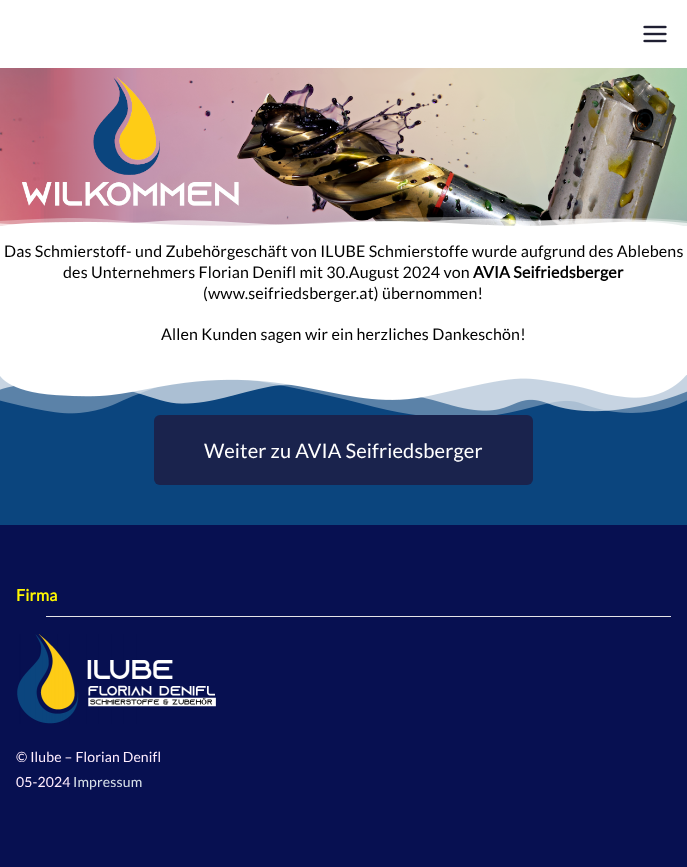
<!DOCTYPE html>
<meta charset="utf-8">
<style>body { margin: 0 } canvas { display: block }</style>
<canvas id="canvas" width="687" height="867"></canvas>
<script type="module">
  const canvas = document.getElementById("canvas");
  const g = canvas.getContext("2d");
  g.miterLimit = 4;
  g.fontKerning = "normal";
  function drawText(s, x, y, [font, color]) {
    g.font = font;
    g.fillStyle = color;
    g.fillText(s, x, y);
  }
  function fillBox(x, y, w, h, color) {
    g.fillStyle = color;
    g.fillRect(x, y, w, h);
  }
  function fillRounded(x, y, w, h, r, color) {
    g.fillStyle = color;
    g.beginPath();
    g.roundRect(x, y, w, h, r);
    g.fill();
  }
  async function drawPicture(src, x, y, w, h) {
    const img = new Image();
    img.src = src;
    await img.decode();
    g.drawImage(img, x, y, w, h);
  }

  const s1 = ["16px Lato", "#000000"];
  const s2 = ["bold 16px Lato", "#000000"];
  const s3 = ["20px Lato", "#FFFFFF"];
  const s4 = ["bold 16px Lato", "#FFF700"];
  const s5 = ["14px Lato", "#FFEDFE"];
  const s6 = ["14px Lato", "#D9E2EA"];

  fillBox(0, 0, 687, 867, "#FFFFFF");
  await drawPicture("pic1.png", 643, 25, 24, 18);
  await drawPicture("pic2.png", 0, 68, 687, 158);
  await drawPicture("pic3.png", 0, 217, 687, 9);
  g.letterSpacing = "0.15px";
  drawText("Das Schmierstoff- und Zubehörgeschäft von ILUBE Schmierstoffe wurde aufgrund des Ablebens", 4, 257, s1);
  drawText("des Unternehmers Florian Denifl mit 30.August 2024 von", 63, 278, s1);
  drawText("AVIA Seifriedsberger", 473, 278, s2);
  drawText("(www.seifriedsberger.at) übernommen!", 203, 299, s1);
  drawText("Allen Kunden sagen wir ein herzliches Dankeschön!", 161, 340, s1);
  fillBox(0, 375, 687, 150, "#0B457E");
  await drawPicture("pic4.png", 0, 375, 687, 40);
  fillRounded(154, 415, 379, 70, 6, "#1A234D");
  drawText("Weiter zu AVIA Seifriedsberger", 204, 458, s3);
  fillBox(0, 525, 687, 342, "#071051");
  fillBox(46, 616, 625, 1, "#E4E4E7");
  drawText("Firma", 16, 601, s4);
  await drawPicture("pic5.png", 17, 634, 199, 90);
  drawText("© Ilube – Florian Denifl", 16, 762, s5);
  drawText("05-2024", 16, 787, s5);
  drawText("Impressum", 73, 787, s6);
</script>
